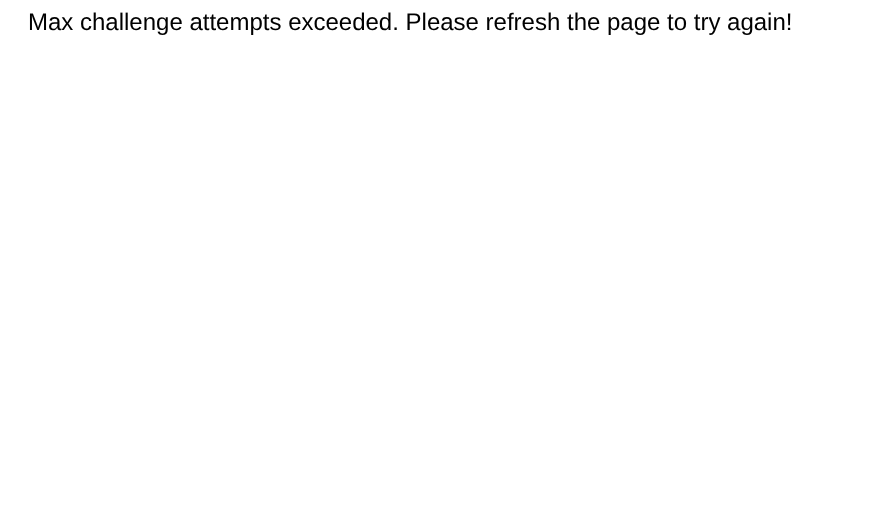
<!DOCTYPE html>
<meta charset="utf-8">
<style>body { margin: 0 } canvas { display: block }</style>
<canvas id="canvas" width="884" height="515"></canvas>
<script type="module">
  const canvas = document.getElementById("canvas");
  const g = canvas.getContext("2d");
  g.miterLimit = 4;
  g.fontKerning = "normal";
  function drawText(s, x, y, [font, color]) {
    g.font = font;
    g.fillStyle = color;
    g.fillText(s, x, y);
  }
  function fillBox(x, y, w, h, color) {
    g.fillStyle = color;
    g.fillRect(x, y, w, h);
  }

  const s1 = ["24px Liberation Sans", "#000000"];

  fillBox(0, 0, 884, 515, "#FFFFFF");
  drawText("Max challenge attempts exceeded. Please refresh the page to try again!", 28, 30, s1);
</script>
